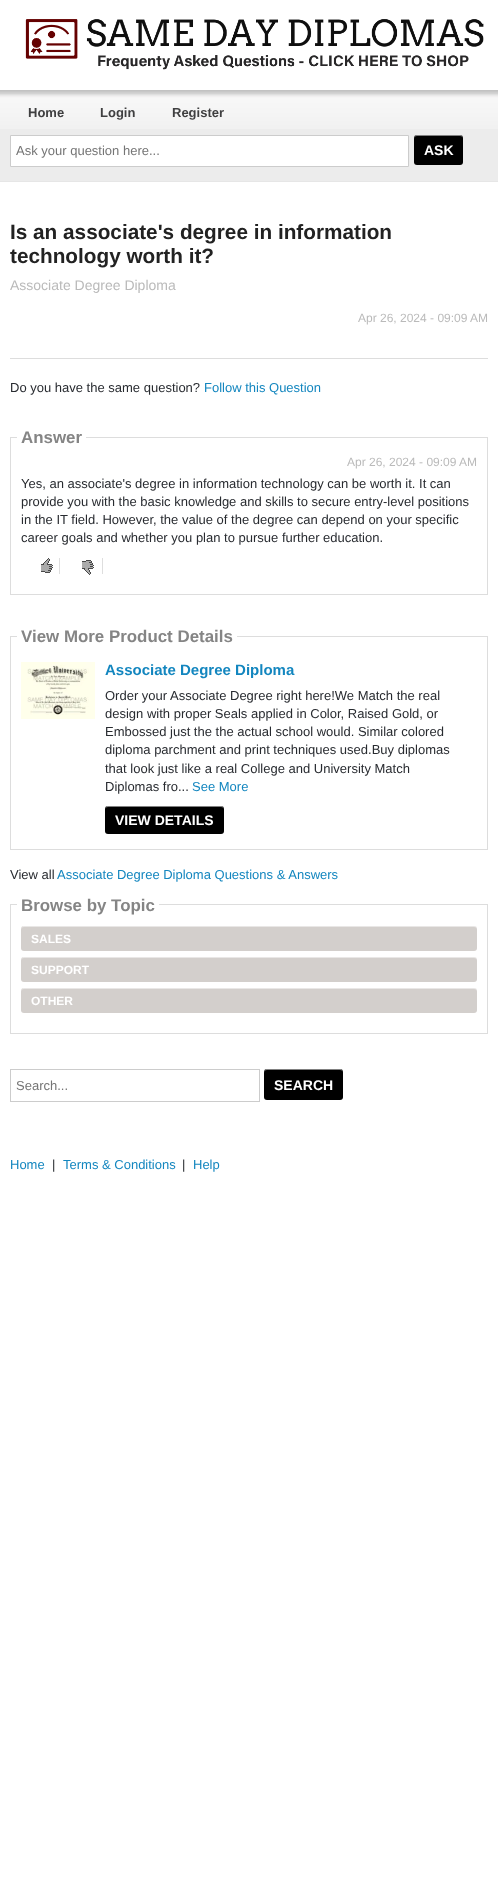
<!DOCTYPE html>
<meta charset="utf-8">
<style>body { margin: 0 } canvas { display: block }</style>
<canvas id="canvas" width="498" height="1904"></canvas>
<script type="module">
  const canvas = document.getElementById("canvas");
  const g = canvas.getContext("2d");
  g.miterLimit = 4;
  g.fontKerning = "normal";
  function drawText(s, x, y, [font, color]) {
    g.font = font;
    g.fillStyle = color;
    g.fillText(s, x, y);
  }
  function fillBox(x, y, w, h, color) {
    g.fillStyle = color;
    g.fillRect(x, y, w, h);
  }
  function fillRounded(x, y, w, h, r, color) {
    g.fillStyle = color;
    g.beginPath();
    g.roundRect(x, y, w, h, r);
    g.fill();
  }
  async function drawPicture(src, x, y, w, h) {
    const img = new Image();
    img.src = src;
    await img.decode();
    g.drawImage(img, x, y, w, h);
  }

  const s1 = ["bold 13px Liberation Sans", "#3F3F40"];
  const s2 = ["13px Liberation Sans", "#757575"];
  const s3 = ["bold 14px Liberation Sans", "#FFFFFF"];
  const s4 = ["bold 20.75px Liberation Sans", "#222222"];
  const s5 = ["14px Liberation Sans", "#BABABA"];
  const s6 = ["12px Liberation Sans", "#BABABA"];
  const s7 = ["13px Liberation Sans", "#282B30"];
  const s8 = ["13px Liberation Sans", "#1386BF"];
  const s9 = ["bold 16.9px Liberation Sans", "#858585"];
  const s10 = ["bold 15px Liberation Sans", "#1386BF"];
  const s11 = ["bold 12px Liberation Sans", "#FFFFFF"];

  fillBox(0, 0, 498, 1904, "#FFFFFF");
  await drawPicture("pic1.png", 25, 19, 459, 51);
  fillBox(0, 129, 498, 52, "#ECECEC");
  await drawPicture("pic2.png", 0, 90, 498, 39);
  fillBox(0, 181, 498, 1, "#E6E6E6");
  drawText("Home", 28, 117, s1);
  drawText("Login", 100, 117, s1);
  drawText("Register", 172, 117, s1);
  g.fillStyle = "#FFFFFF";
  g.beginPath();
  g.rect(10.5, 135.5, 398, 31);
  g.fill();
  g.strokeStyle = "#CCCCCC";
  g.stroke();
  drawText("Ask your question here...", 16, 155, s2);
  fillRounded(414, 135, 49, 30, 3, "#000000");
  g.fillStyle = "rgba(255, 255, 255, 0.5)";
  g.beginPath();
  g.moveTo(417, 136);
  g.lineTo(460, 136);
  g.bezierCurveTo(462, 136, 463, 137, 463, 139);
  g.bezierCurveTo(463, 133, 457, 135, 453, 135);
  g.lineTo(424, 135);
  g.bezierCurveTo(420, 135, 414, 133, 414, 139);
  g.bezierCurveTo(414, 137, 415, 136, 417, 136);
  g.closePath();
  g.fill();
  drawText("ASK", 424, 155, s3);
  drawText("Is an associate's degree in information", 10, 239, s4);
  drawText("technology worth it?", 10, 263, s4);
  drawText("Associate Degree Diploma", 10, 290, s5);
  drawText("Apr 26, 2024 - 09:09 AM", 358, 322, s6);
  fillBox(10, 358, 478, 1, "#DDDDDD");
  drawText("Do you have the same question?", 10, 392, s7);
  drawText("Follow this Question", 204, 392, s8);
  g.strokeStyle = "#DDDDDD";
  g.strokeRect(10.5, 437.5, 477, 157);
  fillBox(17, 437, 69, 1, "#FFFFFF");
  drawText("Answer", 21, 443, s9);
  drawText("Apr 26, 2024 - 09:09 AM", 347, 466, s6);
  drawText("Yes, an associate's degree in information technology can be worth it. It can", 21, 488, s7);
  drawText("provide you with the basic knowledge and skills to secure entry-level positions", 21, 506, s7);
  drawText("in the IT field. However, the value of the degree can depend on your specific", 21, 524, s7);
  drawText("career goals and whether you plan to pursue further education.", 21, 542, s7);
  fillBox(59, 558, 1, 16, "#DEDEDE");
  await drawPicture("pic3.png", 41, 558, 12, 15);
  fillBox(102, 558, 1, 16, "#DEDEDE");
  await drawPicture("pic4.png", 82, 560, 12, 15);
  g.strokeRect(10.5, 636.5, 477, 213);
  fillBox(17, 636, 220, 1, "#FFFFFF");
  drawText("View More Product Details", 21, 642, s9);
  await drawPicture("pic5.png", 21, 662, 74, 57);
  drawText("Associate Degree Diploma", 105, 675, s10);
  drawText("Order your Associate Degree right here!We Match the real", 105, 700, s7);
  drawText("design with proper Seals applied in Color, Raised Gold, or", 105, 718, s7);
  drawText("Embossed just the the actual school would. Similar colored", 105, 736, s7);
  drawText("diploma parchment and print techniques used.Buy diplomas", 105, 754, s7);
  drawText("that look just like a real College and University Match", 105, 773, s7);
  drawText("Diplomas fro...", 105, 791, s7);
  drawText("See More", 192, 791, s8);
  fillRounded(105, 806, 119, 28, 3, "#000000");
  g.fillStyle = "rgba(255, 255, 255, 0.5)";
  g.beginPath();
  g.moveTo(108, 807);
  g.lineTo(221, 807);
  g.bezierCurveTo(223, 807, 224, 808, 224, 810);
  g.bezierCurveTo(224, 808, 223, 806, 221, 806);
  g.lineTo(127, 806);
  g.bezierCurveTo(126, 806, 105, 801, 105, 810);
  g.bezierCurveTo(105, 808, 106, 807, 108, 807);
  g.closePath();
  g.fill();
  drawText("VIEW DETAILS", 115, 825, s3);
  drawText("View all", 10, 879, s7);
  drawText("Associate Degree Diploma Questions & Answers", 57, 879, s8);
  g.strokeRect(10.5, 904.5, 477, 129);
  fillBox(17, 904, 142, 1, "#FFFFFF");
  drawText("Browse by Topic", 21, 911, s9);
  fillRounded(21, 926, 456, 25, 3, "#D3CFCC");
  g.fillStyle = "rgba(255, 255, 255, 0.5)";
  g.beginPath();
  g.moveTo(24, 927);
  g.lineTo(474, 927);
  g.bezierCurveTo(476, 927, 477, 928, 477, 930);
  g.bezierCurveTo(477, 928, 477, 926, 475, 926);
  g.lineTo(23, 926);
  g.lineTo(21, 928);
  g.lineTo(21, 930);
  g.bezierCurveTo(21, 928, 22, 927, 24, 927);
  g.closePath();
  g.fill();
  drawText("SALES", 31, 943, s11);
  fillRounded(21, 957, 456, 25, 3, "#D3CFCC");
  g.fillStyle = "rgba(255, 255, 255, 0.5)";
  g.beginPath();
  g.moveTo(24, 958);
  g.lineTo(474, 958);
  g.bezierCurveTo(476, 958, 477, 959, 477, 961);
  g.bezierCurveTo(477, 959, 477, 957, 475, 957);
  g.lineTo(23, 957);
  g.lineTo(21, 959);
  g.lineTo(21, 961);
  g.bezierCurveTo(21, 959, 22, 958, 24, 958);
  g.closePath();
  g.fill();
  drawText("SUPPORT", 31, 974, s11);
  fillRounded(21, 988, 456, 25, 3, "#D3CFCC");
  g.fillStyle = "rgba(255, 255, 255, 0.5)";
  g.beginPath();
  g.moveTo(24, 989);
  g.lineTo(474, 989);
  g.bezierCurveTo(476, 989, 477, 990, 477, 992);
  g.bezierCurveTo(477, 990, 477, 988, 475, 988);
  g.lineTo(23, 988);
  g.lineTo(21, 990);
  g.lineTo(21, 992);
  g.bezierCurveTo(21, 990, 22, 989, 24, 989);
  g.closePath();
  g.fill();
  drawText("OTHER", 31, 1005, s11);
  g.strokeStyle = "#CCCCCC";
  g.strokeRect(10.5, 1069.5, 249, 32);
  drawText("Search...", 16, 1090, s2);
  fillRounded(264, 1069, 79, 31, 3, "#000000");
  g.fillStyle = "rgba(255, 255, 255, 0.5)";
  g.beginPath();
  g.moveTo(267, 1070);
  g.lineTo(340, 1070);
  g.bezierCurveTo(342, 1070, 343, 1071, 343, 1073);
  g.bezierCurveTo(343, 1066, 332, 1069, 328, 1069);
  g.lineTo(279, 1069);
  g.bezierCurveTo(275, 1069, 264, 1066, 264, 1073);
  g.bezierCurveTo(264, 1071, 265, 1070, 267, 1070);
  g.closePath();
  g.fill();
  drawText("SEARCH", 274, 1090, s3);
  drawText("Home", 10, 1169, s8);
  drawText("|", 52, 1169, s7);
  drawText("Terms & Conditions", 63, 1169, s8);
  drawText("|", 182, 1169, s7);
  drawText("Help", 193, 1169, s8);
</script>
